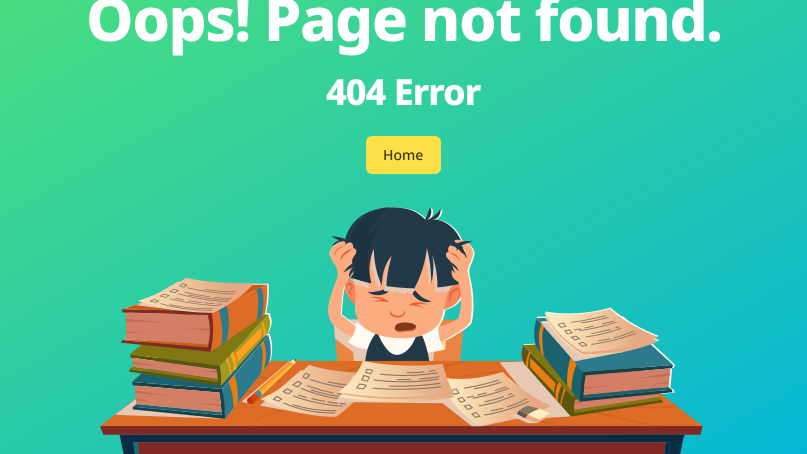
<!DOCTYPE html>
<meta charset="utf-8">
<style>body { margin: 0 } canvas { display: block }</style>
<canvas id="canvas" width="807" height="454"></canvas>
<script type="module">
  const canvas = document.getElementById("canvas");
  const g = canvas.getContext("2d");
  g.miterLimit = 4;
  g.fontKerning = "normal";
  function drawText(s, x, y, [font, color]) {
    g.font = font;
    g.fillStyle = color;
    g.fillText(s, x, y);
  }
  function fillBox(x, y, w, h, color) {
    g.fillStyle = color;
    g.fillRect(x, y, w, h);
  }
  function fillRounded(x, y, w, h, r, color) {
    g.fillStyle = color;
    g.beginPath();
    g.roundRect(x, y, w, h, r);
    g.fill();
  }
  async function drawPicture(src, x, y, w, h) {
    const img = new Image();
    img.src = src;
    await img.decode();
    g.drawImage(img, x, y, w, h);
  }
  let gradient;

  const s1 = ["800 60px Noto Sans", "#FFFFFF"];
  const s2 = ["800 36px Noto Sans", "#FFFFFF"];
  const s3 = ["500 14px Noto Sans", "#3F3812"];

  fillBox(0, 0, 807, 454, "#FFFFFF");
  gradient = g.createLinearGradient(209, -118, 598, 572);
  gradient.addColorStop(0, "#4ADE80");
  gradient.addColorStop(1, "#06B6D4");
  g.fillStyle = gradient;
  g.fillRect(0, 0, 807, 454);
  g.letterSpacing = "-1.5px";
  drawText("Oops! Page not found.", 86, 41, s1);
  g.letterSpacing = "-1px";
  drawText("404 Error", 326, 105, s2);
  fillRounded(366, 136, 75, 38, 6, "#FDE047");
  g.letterSpacing = "0px";
  drawText("Home", 383, 160, s3);
  await drawPicture("pic1.png", 100, 207, 603, 247);
</script>
